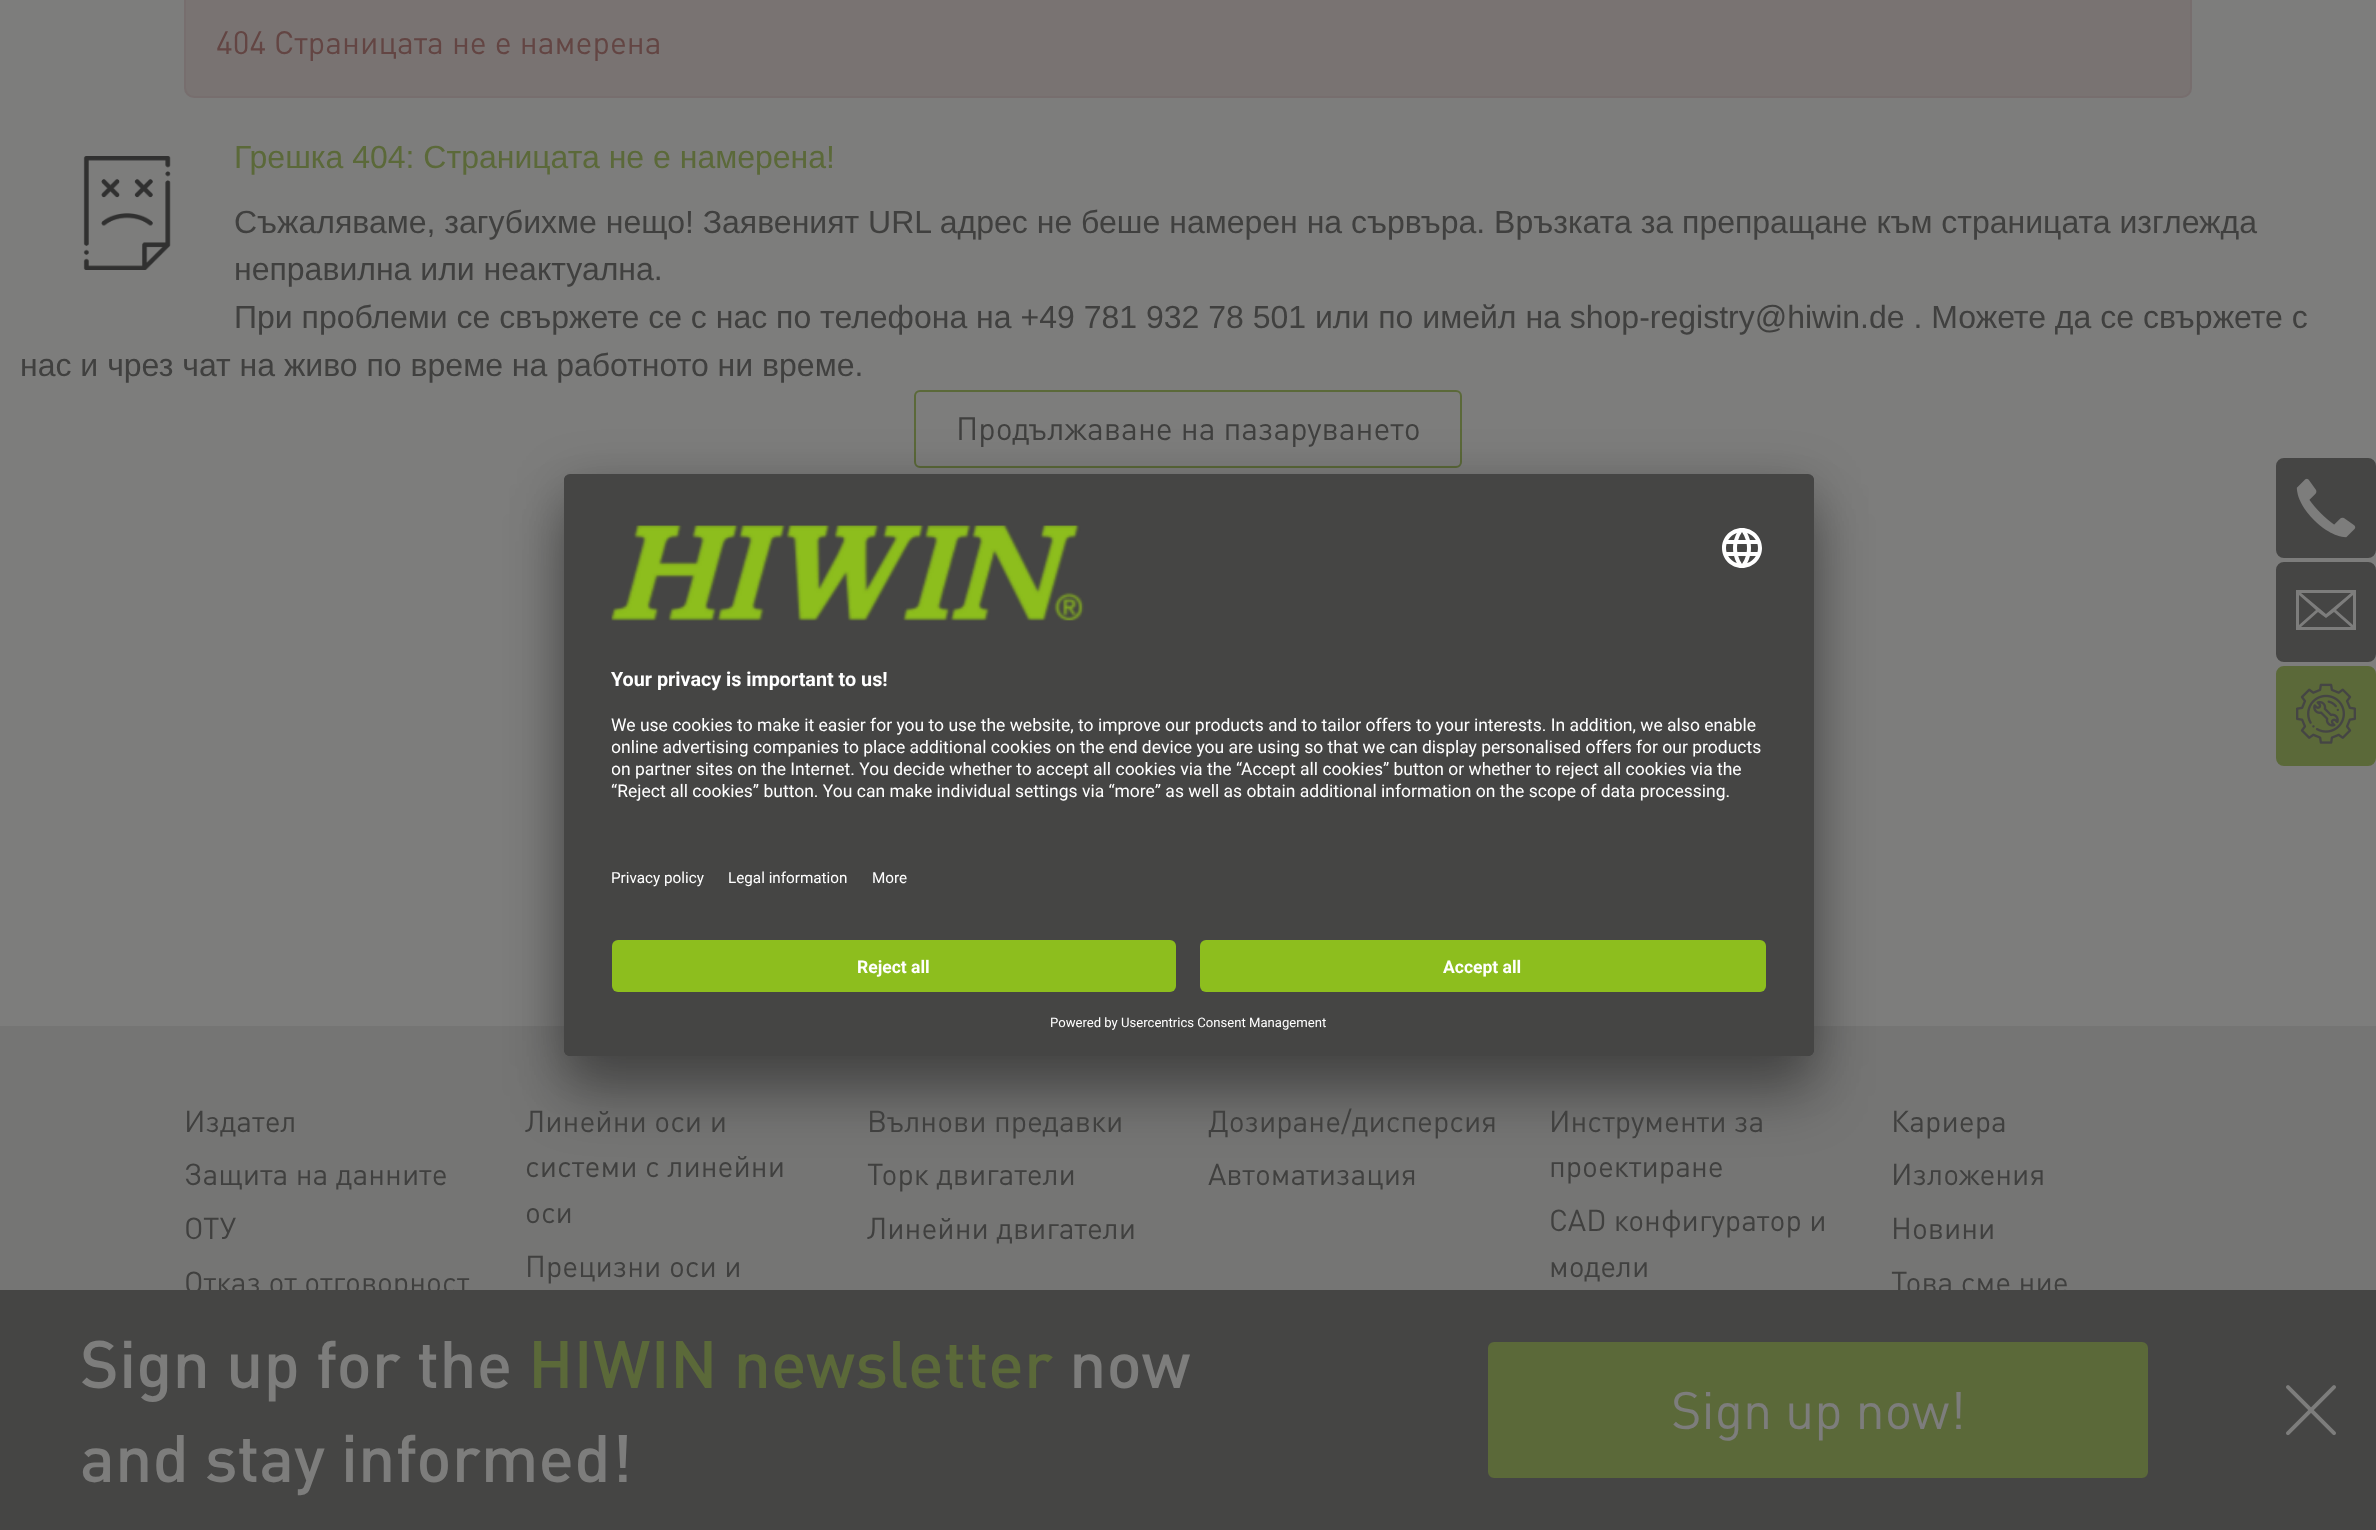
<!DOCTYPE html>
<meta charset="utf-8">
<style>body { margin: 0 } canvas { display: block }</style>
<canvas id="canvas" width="2376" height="1530"></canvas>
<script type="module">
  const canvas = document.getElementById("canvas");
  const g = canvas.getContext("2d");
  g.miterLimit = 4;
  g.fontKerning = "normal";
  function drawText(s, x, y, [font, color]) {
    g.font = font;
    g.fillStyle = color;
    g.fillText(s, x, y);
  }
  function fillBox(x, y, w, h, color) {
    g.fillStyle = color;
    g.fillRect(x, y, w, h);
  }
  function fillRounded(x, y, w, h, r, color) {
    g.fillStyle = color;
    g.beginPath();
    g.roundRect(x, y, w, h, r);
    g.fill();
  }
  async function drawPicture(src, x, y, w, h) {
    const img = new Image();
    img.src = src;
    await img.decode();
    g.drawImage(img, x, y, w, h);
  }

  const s1 = ["32px DIN", "#634543"];
  const s2 = ["32px Liberation Sans", "#5B6939"];
  const s3 = ["32px Liberation Sans", "#40403F"];
  const s4 = ["32px DIN", "#40403F"];
  const s5 = ["bold 19.75px Roboto", "#FFFFFF"];
  const s6 = ["17.5px Roboto", "#FFFFFF"];
  const s7 = ["15.25px Roboto", "#FFFFFF"];
  const s8 = ["bold 17.5px Roboto", "#FFFFFF"];
  const s9 = ["13.1px Roboto", "#FFFFFF"];
  const s10 = ["30px DIN", "#40403F"];
  const s11 = ["500 66px DIN", "#7D7D7C"];
  const s12 = ["500 66px DIN", "#5B6939"];
  const s13 = ["52px DIN", "#7D7D7C"];

  fillBox(0, 0, 2376, 1530, "#7D7D7C");
  g.fillStyle = "#797372";
  g.beginPath();
  g.roundRect(185, -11, 2006, 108, 9);
  g.fill();
  g.strokeStyle = "#776E6E";
  g.lineWidth = 2;
  g.stroke();
  drawText("404 Страницата не е намерена", 216, 54, s1);
  await drawPicture("pic1.png", 83, 156, 88, 114);
  drawText("Грешка 404: Страницата не е намерена!", 234, 168, s2);
  drawText("Съжаляваме, загубихме нещо! Заявеният URL адрес не беше намерен на сървъра. Връзката за препращане към страницата изглежда", 234, 233, s3);
  drawText("неправилна или неактуална.", 234, 280, s3);
  drawText("При проблеми се свържете се с нас по телефона на +49 781 932 78 501 или по имейл на shop-registry@hiwin.de . Можете да се свържете с", 234, 328, s3);
  drawText("нас и чрез чат на живо по време на работното ни време.", 20, 376, s3);
  g.beginPath();
  g.roundRect(915, 391, 546, 76, 5);
  g.strokeStyle = "#5B6939";
  g.stroke();
  drawText("Продължаване на пазаруването", 956, 440, s4);
  fillBox(0, 1026, 2376, 264, "#757574");
  g.fillStyle = "rgba(0, 0, 0, 0.3)";
  g.filter = "blur(28px)";
  g.beginPath();
  g.roundRect(564, 514, 1250, 582, 6);
  g.fill();
  g.filter = "none";
  g.fillStyle = "rgba(0, 0, 0, 0.22)";
  g.filter = "blur(26px)";
  g.beginPath();
  g.roundRect(564, 484, 1250, 582, 6);
  g.fill();
  g.filter = "none";
  fillRounded(564, 474, 1250, 582, 6, "#454544");
  g.save();
  g.beginPath();
  g.roundRect(564, 474, 1250, 582, 6);
  g.clip();
  g.beginPath();
  g.roundRect(564, 474, 1250, 450, [6, 6, 0, 0]);
  g.clip();
  fillBox(564, 476, 1250, 448, "#454544");
  g.restore();
  await drawPicture("pic2.png", 611, 525, 473, 96);
  await drawPicture("pic3.png", 1722, 528, 40, 40);
  drawText("Your privacy is important to us!", 611, 686, s5);
  drawText("We use cookies to make it easier for you to use the website, to improve our products and to tailor offers to your interests. In addition, we also enable", 611, 731, s6);
  g.save();
  g.beginPath();
  g.rect(612, 706, 1154, 104);
  g.clip();
  drawText("online advertising companies to place additional cookies on the end device you are using so that we can display personalised offers for our products", 611, 753, s6);
  drawText("on partner sites on the Internet. You decide whether to accept all cookies via the “Accept all cookies” button or whether to reject all cookies via the", 611, 775, s6);
  g.restore();
  drawText("“Reject all cookies” button. You can make individual settings via “more” as well as obtain additional information on the scope of data processing.", 611, 797, s6);
  drawText("Privacy policy", 611, 883, s7);
  drawText("Legal information", 728, 883, s7);
  drawText("More", 872, 883, s7);
  g.fillStyle = "#454544";
  g.beginPath();
  g.roundRect(564, 924, 1250, 132, [0, 0, 6, 6]);
  g.fill();
  fillRounded(612, 940, 564, 52, 6, "#8DBE1E");
  drawText("Reject all", 857, 973, s8);
  fillRounded(1200, 940, 566, 52, 6, "#8DBE1E");
  drawText("Accept all", 1443, 973, s8);
  drawText("Powered by Usercentrics Consent Management", 1050, 1027, s9);
  g.fillStyle = "#454544";
  g.beginPath();
  g.roundRect(2277, 459, 98, 98, 7);
  g.fill();
  g.strokeStyle = "#454544";
  g.stroke();
  await drawPicture("pic4.png", 2296, 478, 60, 60);
  g.beginPath();
  g.roundRect(2277, 563, 98, 98, 7);
  g.fill();
  g.stroke();
  g.fillStyle = "#7D7D7C";
  g.beginPath();
  g.moveTo(2296, 590);
  g.lineTo(2296, 630);
  g.lineTo(2356, 630);
  g.lineTo(2356, 590);
  g.closePath();
  g.moveTo(2326, 614);
  g.lineTo(2301, 593);
  g.lineTo(2351, 593);
  g.closePath();
  g.moveTo(2316, 610);
  g.lineTo(2299, 625);
  g.lineTo(2299, 595);
  g.closePath();
  g.moveTo(2318, 612);
  g.lineTo(2326, 618);
  g.lineTo(2334, 612);
  g.lineTo(2351, 627);
  g.lineTo(2301, 627);
  g.closePath();
  g.moveTo(2336, 610);
  g.lineTo(2353, 595);
  g.lineTo(2353, 625);
  g.closePath();
  g.fill();
  g.fillStyle = "#5B6939";
  g.beginPath();
  g.roundRect(2277, 667, 98, 98, 7);
  g.fill();
  g.strokeStyle = "#5B6939";
  g.stroke();
  await drawPicture("pic5.png", 2296, 683, 60, 61);
  drawText("Издател", 184, 1132, s10);
  drawText("Защита на данните", 184, 1185, s10);
  drawText("ОТУ", 184, 1239, s10);
  drawText("Отказ от отговорност", 184, 1293, s10);
  drawText("Линейни оси и", 525, 1132, s10);
  drawText("системи с линейни", 525, 1177, s10);
  drawText("оси", 525, 1223, s10);
  drawText("Прецизни оси и", 525, 1277, s10);
  drawText("Вълнови предавки", 867, 1132, s10);
  drawText("Торк двигатели", 867, 1185, s10);
  drawText("Линейни двигатели", 867, 1239, s10);
  drawText("Дозиране/дисперсия", 1208, 1132, s10);
  drawText("Автоматизация", 1208, 1185, s10);
  drawText("Инструменти за", 1549, 1132, s10);
  drawText("проектиране", 1549, 1177, s10);
  drawText("CAD конфигуратор и", 1549, 1231, s10);
  drawText("модели", 1549, 1277, s10);
  drawText("Кариера", 1891, 1132, s10);
  drawText("Изложения", 1891, 1185, s10);
  drawText("Новини", 1891, 1239, s10);
  drawText("Това сме ние", 1891, 1293, s10);
  fillBox(0, 1290, 2376, 240, "#454544");
  drawText("Sign up for the", 80, 1388, s11);
  drawText("HIWIN newsletter", 528, 1388, s12);
  drawText("now", 1069, 1388, s11);
  drawText("and stay informed!", 80, 1482, s11);
  g.fillStyle = "#5B6939";
  g.beginPath();
  g.roundRect(1489, 1343, 658, 134, 5);
  g.fill();
  g.stroke();
  drawText("Sign up now!", 1671, 1429, s13);
  await drawPicture("pic6.png", 2286, 1385, 50, 51);
</script>
